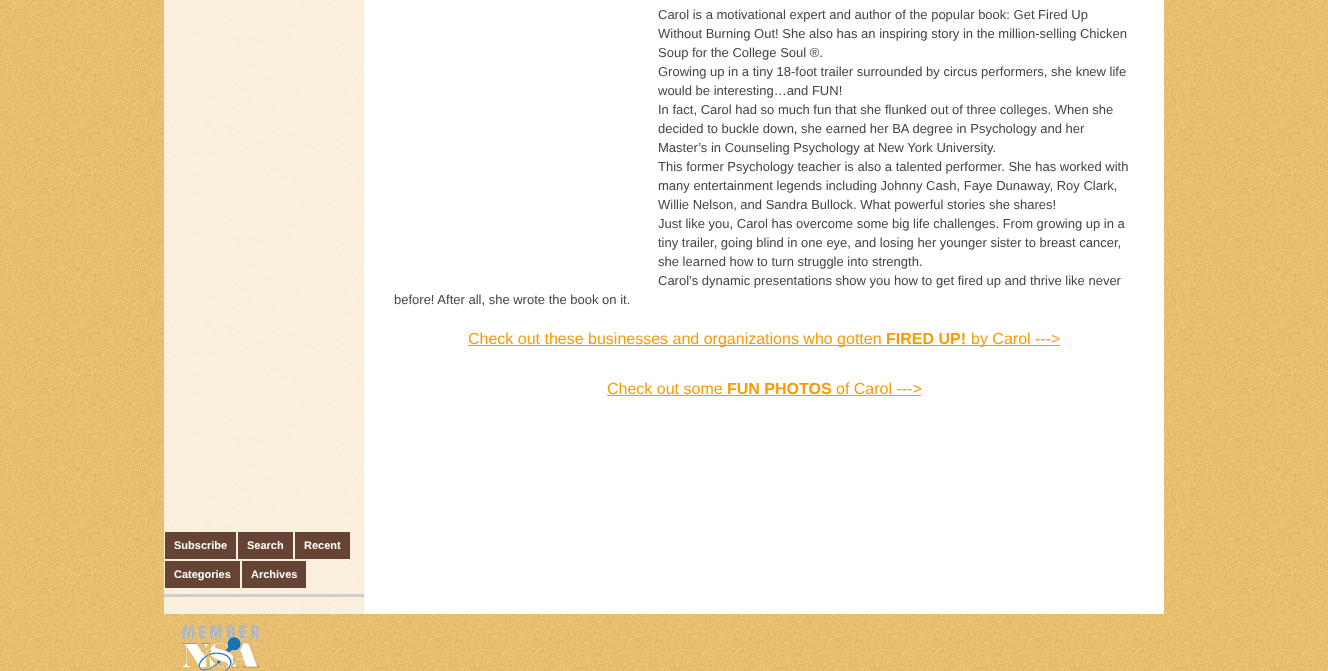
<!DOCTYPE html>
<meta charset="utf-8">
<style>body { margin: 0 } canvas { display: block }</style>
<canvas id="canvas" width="1328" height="671"></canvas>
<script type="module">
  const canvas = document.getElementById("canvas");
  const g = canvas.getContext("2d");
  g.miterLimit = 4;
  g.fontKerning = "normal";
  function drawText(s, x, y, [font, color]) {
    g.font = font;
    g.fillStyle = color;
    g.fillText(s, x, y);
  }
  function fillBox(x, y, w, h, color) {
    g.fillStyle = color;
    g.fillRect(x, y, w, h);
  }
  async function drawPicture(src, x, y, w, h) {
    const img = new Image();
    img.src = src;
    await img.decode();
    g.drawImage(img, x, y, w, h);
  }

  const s1 = ["13px Liberation Sans", "#444444"];
  const s2 = ["16px Liberation Sans", "#FF9900"];
  const s3 = ["bold 16px Liberation Sans", "#FF9900"];
  const s4 = ["bold 11px Liberation Sans", "#FFFFFF"];

  fillBox(0, 0, 1328, 671, "#EEBB55");
  await drawPicture("pic1.png", 0, 0, 1328, 671);
  await drawPicture("pic2.png", 164, 0, 1000, 614);
  drawText("Carol is a motivational expert and author of the popular book: Get Fired Up", 658, 19, s1);
  drawText("Without Burning Out! She also has an inspiring story in the million-selling Chicken", 658, 38, s1);
  drawText("Soup for the College Soul ®.", 658, 57, s1);
  drawText("Growing up in a tiny 18-foot trailer surrounded by circus performers, she knew life", 658, 76, s1);
  drawText("would be interesting…and FUN!", 658, 95, s1);
  drawText("In fact, Carol had so much fun that she flunked out of three colleges. When she", 658, 114, s1);
  drawText("decided to buckle down, she earned her BA degree in Psychology and her", 658, 133, s1);
  drawText("Master’s in Counseling Psychology at New York University.", 658, 152, s1);
  drawText("This former Psychology teacher is also a talented performer. She has worked with", 658, 171, s1);
  drawText("many entertainment legends including Johnny Cash, Faye Dunaway, Roy Clark,", 658, 190, s1);
  drawText("Willie Nelson, and Sandra Bullock. What powerful stories she shares!", 658, 209, s1);
  drawText("Just like you, Carol has overcome some big life challenges. From growing up in a", 658, 228, s1);
  drawText("tiny trailer, going blind in one eye, and losing her younger sister to breast cancer,", 658, 247, s1);
  drawText("she learned how to turn struggle into strength.", 658, 266, s1);
  drawText("Carol’s dynamic presentations show you how to get fired up and thrive like never", 658, 285, s1);
  drawText("before! After all, she wrote the book on it.", 394, 304, s1);
  fillBox(468, 345, 592, 1, "#FF9900");
  drawText("Check out these businesses and organizations who gotten", 468, 344, s2);
  drawText("FIRED UP!", 886, 344, s3);
  drawText("by Carol --->", 971, 344, s2);
  drawText("Check out some", 607, 394, s2);
  fillBox(607, 395, 314, 1, "#FF9900");
  drawText("FUN PHOTOS", 727, 394, s3);
  drawText("of Carol --->", 836, 394, s2);
  fillBox(165, 532, 71, 27, "#664433");
  drawText("Subscribe", 174, 549, s4);
  fillBox(238, 532, 55, 27, "#664433");
  drawText("Search", 247, 549, s4);
  fillBox(295, 532, 55, 27, "#664433");
  drawText("Recent", 304, 549, s4);
  fillBox(165, 561, 75, 27, "#664433");
  drawText("Categories", 174, 578, s4);
  fillBox(242, 561, 64, 27, "#664433");
  drawText("Archives", 251, 578, s4);
  fillBox(164, 594, 200, 3, "#CCCCCC");
  await drawPicture("pic3.png", 181, 625, 79, 46);
</script>
